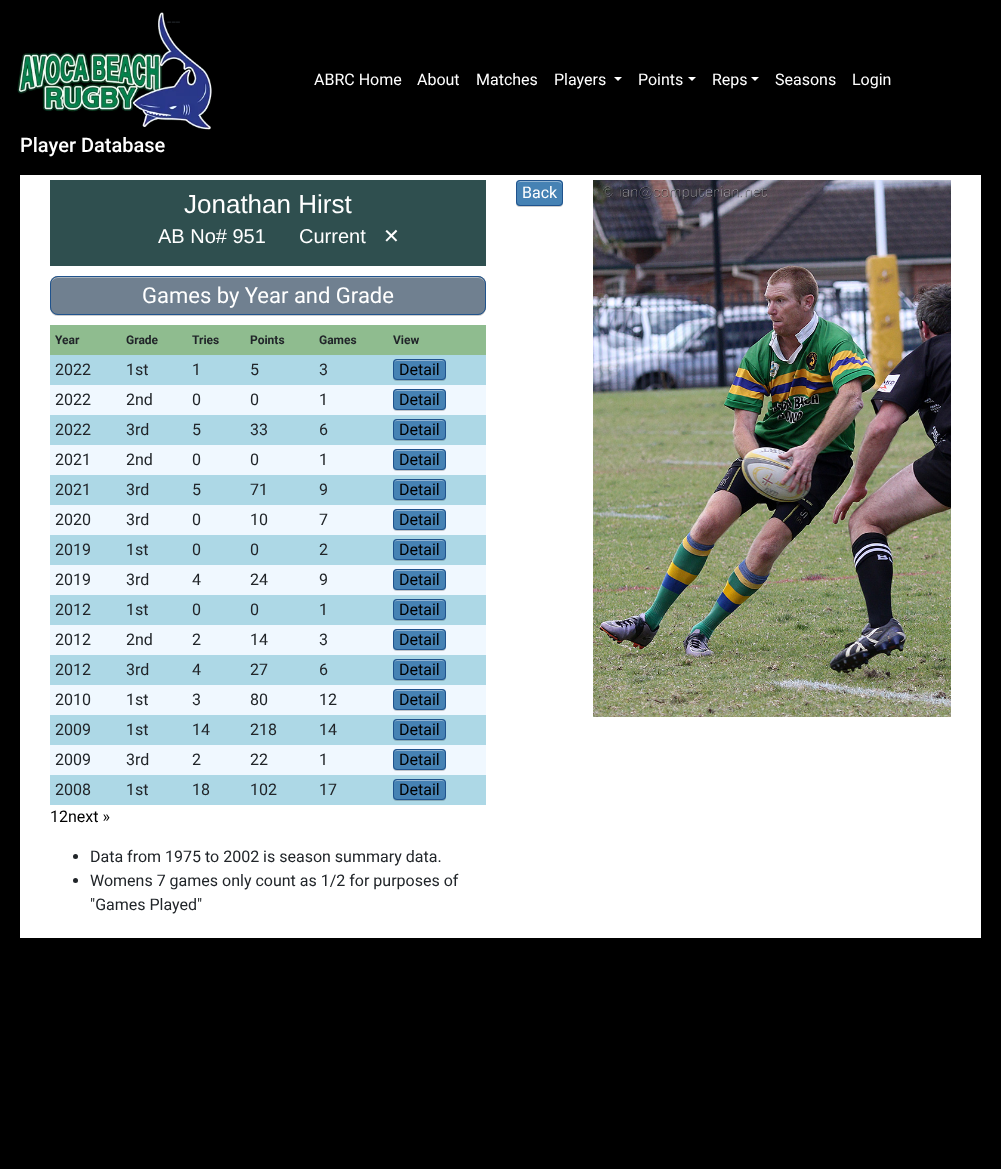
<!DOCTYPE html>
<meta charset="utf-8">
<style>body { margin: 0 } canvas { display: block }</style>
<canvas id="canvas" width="1001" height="1169"></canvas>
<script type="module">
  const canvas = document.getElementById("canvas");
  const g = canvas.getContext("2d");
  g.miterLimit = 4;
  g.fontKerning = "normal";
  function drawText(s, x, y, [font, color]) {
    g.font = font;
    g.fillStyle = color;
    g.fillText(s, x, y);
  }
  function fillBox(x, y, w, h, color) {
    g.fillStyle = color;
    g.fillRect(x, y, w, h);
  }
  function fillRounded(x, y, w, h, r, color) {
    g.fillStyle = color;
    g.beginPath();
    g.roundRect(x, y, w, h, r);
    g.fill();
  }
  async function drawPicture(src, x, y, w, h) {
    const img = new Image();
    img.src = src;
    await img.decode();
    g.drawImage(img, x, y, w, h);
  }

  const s1 = ["16px Roboto", "#212529"];
  const s2 = ["16px Roboto", "#FFFFFF"];
  const s3 = ["500 20px Roboto", "#FFFFFF"];
  const s4 = ["26px Liberation Sans", "#FFFFFF"];
  const s5 = ["20px Liberation Sans", "#FFFFFF"];
  const s6 = ["20px DejaVu Sans", "#FFFFFF"];
  const s7 = ["22px Roboto", "#FFFFFF"];
  const s8 = ["bold 12px Roboto", "#212529"];
  const s9 = ["16px Roboto", "#000000"];

  fillBox(0, 0, 1001, 1169, "#000000");
  drawText("---", 167, 27, s1);
  drawText("ABRC Home", 314, 85, s2);
  drawText("About", 417, 85, s2);
  drawText("Matches", 476, 85, s2);
  drawText("Players", 554, 85, s2);
  g.beginPath();
  g.moveTo(614, 77);
  g.lineTo(622, 77);
  g.lineTo(618, 81);
  g.closePath();
  g.fill();
  drawText("Points", 638, 85, s2);
  g.beginPath();
  g.moveTo(688, 77);
  g.lineTo(696, 77);
  g.lineTo(692, 81);
  g.closePath();
  g.fill();
  drawText("Reps", 712, 85, s2);
  g.beginPath();
  g.moveTo(751, 77);
  g.lineTo(759, 77);
  g.lineTo(755, 81);
  g.closePath();
  g.fill();
  drawText("Seasons", 775, 85, s2);
  drawText("Login", 852, 85, s2);
  await drawPicture("pic1.png", 17, 12, 195, 118);
  drawText("Player Database", 20, 152, s3);
  fillBox(20, 175, 961, 763, "#FFFFFF");
  g.fillStyle = "rgba(0, 0, 0, 0.2)";
  g.filter = "blur(0.5px)";
  g.beginPath();
  g.roundRect(516, 181, 47, 26, 4);
  g.fill();
  g.filter = "none";
  fillRounded(516, 180, 47, 26, 4, "#4682B4");
  g.fillStyle = "#90B4D2";
  g.beginPath();
  g.moveTo(520, 182);
  g.lineTo(552, 182);
  g.bezierCurveTo(555, 182, 561, 181, 562, 185);
  g.bezierCurveTo(562, 180, 557, 181, 552, 181);
  g.lineTo(526, 181);
  g.bezierCurveTo(523, 181, 517, 180, 517, 184);
  g.bezierCurveTo(517, 183, 518, 182, 520, 182);
  g.closePath();
  g.moveTo(517, 203);
  g.lineTo(517, 202);
  g.closePath();
  g.fill("evenodd");
  g.beginPath();
  g.roundRect(516.5, 180.5, 46, 25, 3.5);
  g.strokeStyle = "#20538D";
  g.stroke();
  drawText("Back", 522, 198, s2);
  await drawPicture("pic2.png", 593, 180, 358, 537);
  fillBox(50, 180, 436, 86, "#2F4F4F");
  drawText("Jonathan Hirst", 184, 213, s4);
  drawText("AB No# 951", 158, 243, s5);
  drawText("Current", 299, 243, s5);
  drawText("✕︎", 383, 243, s6);
  g.fillStyle = "rgba(0, 0, 0, 0.2)";
  g.filter = "blur(0.5px)";
  g.beginPath();
  g.roundRect(50, 277, 436, 39, 8);
  g.fill();
  g.filter = "none";
  fillRounded(50, 276, 436, 39, 8, "#708090");
  g.fillStyle = "#A9B3BC";
  g.beginPath();
  g.moveTo(58, 278);
  g.lineTo(478, 278);
  g.bezierCurveTo(482, 278, 485, 281, 485, 285);
  g.bezierCurveTo(485, 281, 483, 277, 478, 277);
  g.lineTo(58, 277);
  g.bezierCurveTo(53, 277, 51, 281, 51, 285);
  g.bezierCurveTo(51, 281, 54, 278, 58, 278);
  g.closePath();
  g.fill();
  g.beginPath();
  g.roundRect(50.5, 276.5, 435, 38, 7.5);
  g.stroke();
  drawText("Games by Year and Grade", 142, 303, s7);
  fillBox(50, 325, 436, 30, "#8FBC8F");
  drawText("Year", 55, 344, s8);
  drawText("Grade", 126, 344, s8);
  drawText("Tries", 192, 344, s8);
  drawText("Points", 250, 344, s8);
  drawText("Games", 319, 344, s8);
  drawText("View", 393, 344, s8);
  fillBox(50, 355, 436, 30, "#ADD8E6");
  drawText("2022", 55, 375, s1);
  drawText("1st", 126, 375, s1);
  drawText("1", 192, 375, s1);
  drawText("5", 250, 375, s1);
  drawText("3", 319, 375, s1);
  g.fillStyle = "rgba(0, 0, 0, 0.2)";
  g.filter = "blur(0.5px)";
  g.beginPath();
  g.roundRect(393, 360, 53, 21, 4);
  g.fill();
  g.filter = "none";
  fillRounded(393, 359, 53, 21, 4, "#4682B4");
  g.fillStyle = "#90B4D2";
  g.beginPath();
  g.moveTo(397, 361);
  g.lineTo(442, 361);
  g.bezierCurveTo(444, 361, 445, 362, 445, 364);
  g.bezierCurveTo(445, 358, 439, 360, 434, 360);
  g.lineTo(404, 360);
  g.bezierCurveTo(400, 360, 394, 358, 394, 364);
  g.bezierCurveTo(394, 362, 395, 361, 397, 361);
  g.closePath();
  g.fill();
  g.beginPath();
  g.roundRect(393.5, 359.5, 52, 20, 3.5);
  g.stroke();
  drawText("Detail", 399, 375, s9);
  fillBox(50, 385, 436, 30, "#F0F8FF");
  drawText("2022", 55, 405, s1);
  drawText("2nd", 126, 405, s1);
  drawText("0", 192, 405, s1);
  drawText("0", 250, 405, s1);
  drawText("1", 319, 405, s1);
  g.fillStyle = "rgba(0, 0, 0, 0.2)";
  g.filter = "blur(0.5px)";
  g.beginPath();
  g.roundRect(393, 390, 53, 21, 4);
  g.fill();
  g.filter = "none";
  fillRounded(393, 389, 53, 21, 4, "#4682B4");
  g.fillStyle = "#90B4D2";
  g.beginPath();
  g.moveTo(397, 391);
  g.lineTo(442, 391);
  g.bezierCurveTo(444, 391, 445, 392, 445, 394);
  g.bezierCurveTo(445, 388, 439, 390, 434, 390);
  g.lineTo(404, 390);
  g.bezierCurveTo(400, 390, 394, 388, 394, 394);
  g.bezierCurveTo(394, 392, 395, 391, 397, 391);
  g.closePath();
  g.fill();
  g.beginPath();
  g.roundRect(393.5, 389.5, 52, 20, 3.5);
  g.stroke();
  drawText("Detail", 399, 405, s9);
  fillBox(50, 415, 436, 30, "#ADD8E6");
  drawText("2022", 55, 435, s1);
  drawText("3rd", 126, 435, s1);
  drawText("5", 192, 435, s1);
  drawText("33", 250, 435, s1);
  drawText("6", 319, 435, s1);
  g.fillStyle = "rgba(0, 0, 0, 0.2)";
  g.filter = "blur(0.5px)";
  g.beginPath();
  g.roundRect(393, 420, 53, 21, 4);
  g.fill();
  g.filter = "none";
  fillRounded(393, 419, 53, 21, 4, "#4682B4");
  g.fillStyle = "#90B4D2";
  g.beginPath();
  g.moveTo(397, 421);
  g.lineTo(442, 421);
  g.bezierCurveTo(444, 421, 445, 422, 445, 424);
  g.bezierCurveTo(445, 418, 439, 420, 434, 420);
  g.lineTo(404, 420);
  g.bezierCurveTo(400, 420, 394, 418, 394, 424);
  g.bezierCurveTo(394, 422, 395, 421, 397, 421);
  g.closePath();
  g.fill();
  g.beginPath();
  g.roundRect(393.5, 419.5, 52, 20, 3.5);
  g.stroke();
  drawText("Detail", 399, 435, s9);
  fillBox(50, 445, 436, 30, "#F0F8FF");
  drawText("2021", 55, 465, s1);
  drawText("2nd", 126, 465, s1);
  drawText("0", 192, 465, s1);
  drawText("0", 250, 465, s1);
  drawText("1", 319, 465, s1);
  g.fillStyle = "rgba(0, 0, 0, 0.2)";
  g.filter = "blur(0.5px)";
  g.beginPath();
  g.roundRect(393, 450, 53, 21, 4);
  g.fill();
  g.filter = "none";
  fillRounded(393, 449, 53, 21, 4, "#4682B4");
  g.fillStyle = "#90B4D2";
  g.beginPath();
  g.moveTo(397, 451);
  g.lineTo(442, 451);
  g.bezierCurveTo(444, 451, 445, 452, 445, 454);
  g.bezierCurveTo(445, 448, 439, 450, 434, 450);
  g.lineTo(404, 450);
  g.bezierCurveTo(400, 450, 394, 448, 394, 454);
  g.bezierCurveTo(394, 452, 395, 451, 397, 451);
  g.closePath();
  g.fill();
  g.beginPath();
  g.roundRect(393.5, 449.5, 52, 20, 3.5);
  g.stroke();
  drawText("Detail", 399, 465, s9);
  fillBox(50, 475, 436, 30, "#ADD8E6");
  drawText("2021", 55, 495, s1);
  drawText("3rd", 126, 495, s1);
  drawText("5", 192, 495, s1);
  drawText("71", 250, 495, s1);
  drawText("9", 319, 495, s1);
  g.fillStyle = "rgba(0, 0, 0, 0.2)";
  g.filter = "blur(0.5px)";
  g.beginPath();
  g.roundRect(393, 480, 53, 21, 4);
  g.fill();
  g.filter = "none";
  fillRounded(393, 479, 53, 21, 4, "#4682B4");
  g.fillStyle = "#90B4D2";
  g.beginPath();
  g.moveTo(397, 481);
  g.lineTo(442, 481);
  g.bezierCurveTo(444, 481, 445, 482, 445, 484);
  g.bezierCurveTo(445, 478, 439, 480, 434, 480);
  g.lineTo(404, 480);
  g.bezierCurveTo(400, 480, 394, 478, 394, 484);
  g.bezierCurveTo(394, 482, 395, 481, 397, 481);
  g.closePath();
  g.fill();
  g.beginPath();
  g.roundRect(393.5, 479.5, 52, 20, 3.5);
  g.stroke();
  drawText("Detail", 399, 495, s9);
  fillBox(50, 505, 436, 30, "#F0F8FF");
  drawText("2020", 55, 525, s1);
  drawText("3rd", 126, 525, s1);
  drawText("0", 192, 525, s1);
  drawText("10", 250, 525, s1);
  drawText("7", 319, 525, s1);
  g.fillStyle = "rgba(0, 0, 0, 0.2)";
  g.filter = "blur(0.5px)";
  g.beginPath();
  g.roundRect(393, 510, 53, 21, 4);
  g.fill();
  g.filter = "none";
  fillRounded(393, 509, 53, 21, 4, "#4682B4");
  g.fillStyle = "#90B4D2";
  g.beginPath();
  g.moveTo(397, 511);
  g.lineTo(442, 511);
  g.bezierCurveTo(444, 511, 445, 512, 445, 514);
  g.bezierCurveTo(445, 508, 439, 510, 434, 510);
  g.lineTo(404, 510);
  g.bezierCurveTo(400, 510, 394, 508, 394, 514);
  g.bezierCurveTo(394, 512, 395, 511, 397, 511);
  g.closePath();
  g.fill();
  g.beginPath();
  g.roundRect(393.5, 509.5, 52, 20, 3.5);
  g.stroke();
  drawText("Detail", 399, 525, s9);
  fillBox(50, 535, 436, 30, "#ADD8E6");
  drawText("2019", 55, 555, s1);
  drawText("1st", 126, 555, s1);
  drawText("0", 192, 555, s1);
  drawText("0", 250, 555, s1);
  drawText("2", 319, 555, s1);
  g.fillStyle = "rgba(0, 0, 0, 0.2)";
  g.filter = "blur(0.5px)";
  g.beginPath();
  g.roundRect(393, 540, 53, 21, 4);
  g.fill();
  g.filter = "none";
  fillRounded(393, 539, 53, 21, 4, "#4682B4");
  g.fillStyle = "#90B4D2";
  g.beginPath();
  g.moveTo(397, 541);
  g.lineTo(442, 541);
  g.bezierCurveTo(444, 541, 445, 542, 445, 544);
  g.bezierCurveTo(445, 538, 439, 540, 434, 540);
  g.lineTo(404, 540);
  g.bezierCurveTo(400, 540, 394, 538, 394, 544);
  g.bezierCurveTo(394, 542, 395, 541, 397, 541);
  g.closePath();
  g.fill();
  g.beginPath();
  g.roundRect(393.5, 539.5, 52, 20, 3.5);
  g.stroke();
  drawText("Detail", 399, 555, s9);
  fillBox(50, 565, 436, 30, "#F0F8FF");
  drawText("2019", 55, 585, s1);
  drawText("3rd", 126, 585, s1);
  drawText("4", 192, 585, s1);
  drawText("24", 250, 585, s1);
  drawText("9", 319, 585, s1);
  g.fillStyle = "rgba(0, 0, 0, 0.2)";
  g.filter = "blur(0.5px)";
  g.beginPath();
  g.roundRect(393, 570, 53, 21, 4);
  g.fill();
  g.filter = "none";
  fillRounded(393, 569, 53, 21, 4, "#4682B4");
  g.fillStyle = "#90B4D2";
  g.beginPath();
  g.moveTo(397, 571);
  g.lineTo(442, 571);
  g.bezierCurveTo(444, 571, 445, 572, 445, 574);
  g.bezierCurveTo(445, 568, 439, 570, 434, 570);
  g.lineTo(404, 570);
  g.bezierCurveTo(400, 570, 394, 568, 394, 574);
  g.bezierCurveTo(394, 572, 395, 571, 397, 571);
  g.closePath();
  g.fill();
  g.beginPath();
  g.roundRect(393.5, 569.5, 52, 20, 3.5);
  g.stroke();
  drawText("Detail", 399, 585, s9);
  fillBox(50, 595, 436, 30, "#ADD8E6");
  drawText("2012", 55, 615, s1);
  drawText("1st", 126, 615, s1);
  drawText("0", 192, 615, s1);
  drawText("0", 250, 615, s1);
  drawText("1", 319, 615, s1);
  g.fillStyle = "rgba(0, 0, 0, 0.2)";
  g.filter = "blur(0.5px)";
  g.beginPath();
  g.roundRect(393, 600, 53, 21, 4);
  g.fill();
  g.filter = "none";
  fillRounded(393, 599, 53, 21, 4, "#4682B4");
  g.fillStyle = "#90B4D2";
  g.beginPath();
  g.moveTo(397, 601);
  g.lineTo(442, 601);
  g.bezierCurveTo(444, 601, 445, 602, 445, 604);
  g.bezierCurveTo(445, 598, 439, 600, 434, 600);
  g.lineTo(404, 600);
  g.bezierCurveTo(400, 600, 394, 598, 394, 604);
  g.bezierCurveTo(394, 602, 395, 601, 397, 601);
  g.closePath();
  g.fill();
  g.beginPath();
  g.roundRect(393.5, 599.5, 52, 20, 3.5);
  g.stroke();
  drawText("Detail", 399, 615, s9);
  fillBox(50, 625, 436, 30, "#F0F8FF");
  drawText("2012", 55, 645, s1);
  drawText("2nd", 126, 645, s1);
  drawText("2", 192, 645, s1);
  drawText("14", 250, 645, s1);
  drawText("3", 319, 645, s1);
  g.fillStyle = "rgba(0, 0, 0, 0.2)";
  g.filter = "blur(0.5px)";
  g.beginPath();
  g.roundRect(393, 630, 53, 21, 4);
  g.fill();
  g.filter = "none";
  fillRounded(393, 629, 53, 21, 4, "#4682B4");
  g.fillStyle = "#90B4D2";
  g.beginPath();
  g.moveTo(397, 631);
  g.lineTo(442, 631);
  g.bezierCurveTo(444, 631, 445, 632, 445, 634);
  g.bezierCurveTo(445, 628, 439, 630, 434, 630);
  g.lineTo(404, 630);
  g.bezierCurveTo(400, 630, 394, 628, 394, 634);
  g.bezierCurveTo(394, 632, 395, 631, 397, 631);
  g.closePath();
  g.fill();
  g.beginPath();
  g.roundRect(393.5, 629.5, 52, 20, 3.5);
  g.stroke();
  drawText("Detail", 399, 645, s9);
  fillBox(50, 655, 436, 30, "#ADD8E6");
  drawText("2012", 55, 675, s1);
  drawText("3rd", 126, 675, s1);
  drawText("4", 192, 675, s1);
  drawText("27", 250, 675, s1);
  drawText("6", 319, 675, s1);
  g.fillStyle = "rgba(0, 0, 0, 0.2)";
  g.filter = "blur(0.5px)";
  g.beginPath();
  g.roundRect(393, 660, 53, 21, 4);
  g.fill();
  g.filter = "none";
  fillRounded(393, 659, 53, 21, 4, "#4682B4");
  g.fillStyle = "#90B4D2";
  g.beginPath();
  g.moveTo(397, 661);
  g.lineTo(442, 661);
  g.bezierCurveTo(444, 661, 445, 662, 445, 664);
  g.bezierCurveTo(445, 658, 439, 660, 434, 660);
  g.lineTo(404, 660);
  g.bezierCurveTo(400, 660, 394, 658, 394, 664);
  g.bezierCurveTo(394, 662, 395, 661, 397, 661);
  g.closePath();
  g.fill();
  g.beginPath();
  g.roundRect(393.5, 659.5, 52, 20, 3.5);
  g.stroke();
  drawText("Detail", 399, 675, s9);
  fillBox(50, 685, 436, 30, "#F0F8FF");
  drawText("2010", 55, 705, s1);
  drawText("1st", 126, 705, s1);
  drawText("3", 192, 705, s1);
  drawText("80", 250, 705, s1);
  drawText("12", 319, 705, s1);
  g.fillStyle = "rgba(0, 0, 0, 0.2)";
  g.filter = "blur(0.5px)";
  g.beginPath();
  g.roundRect(393, 690, 53, 21, 4);
  g.fill();
  g.filter = "none";
  fillRounded(393, 689, 53, 21, 4, "#4682B4");
  g.fillStyle = "#90B4D2";
  g.beginPath();
  g.moveTo(397, 691);
  g.lineTo(442, 691);
  g.bezierCurveTo(444, 691, 445, 692, 445, 694);
  g.bezierCurveTo(445, 688, 439, 690, 434, 690);
  g.lineTo(404, 690);
  g.bezierCurveTo(400, 690, 394, 688, 394, 694);
  g.bezierCurveTo(394, 692, 395, 691, 397, 691);
  g.closePath();
  g.fill();
  g.beginPath();
  g.roundRect(393.5, 689.5, 52, 20, 3.5);
  g.stroke();
  drawText("Detail", 399, 705, s9);
  fillBox(50, 715, 436, 30, "#ADD8E6");
  drawText("2009", 55, 735, s1);
  drawText("1st", 126, 735, s1);
  drawText("14", 192, 735, s1);
  drawText("218", 250, 735, s1);
  drawText("14", 319, 735, s1);
  g.fillStyle = "rgba(0, 0, 0, 0.2)";
  g.filter = "blur(0.5px)";
  g.beginPath();
  g.roundRect(393, 720, 53, 21, 4);
  g.fill();
  g.filter = "none";
  fillRounded(393, 719, 53, 21, 4, "#4682B4");
  g.fillStyle = "#90B4D2";
  g.beginPath();
  g.moveTo(397, 721);
  g.lineTo(442, 721);
  g.bezierCurveTo(444, 721, 445, 722, 445, 724);
  g.bezierCurveTo(445, 718, 439, 720, 434, 720);
  g.lineTo(404, 720);
  g.bezierCurveTo(400, 720, 394, 718, 394, 724);
  g.bezierCurveTo(394, 722, 395, 721, 397, 721);
  g.closePath();
  g.fill();
  g.beginPath();
  g.roundRect(393.5, 719.5, 52, 20, 3.5);
  g.stroke();
  drawText("Detail", 399, 735, s9);
  fillBox(50, 745, 436, 30, "#F0F8FF");
  drawText("2009", 55, 765, s1);
  drawText("3rd", 126, 765, s1);
  drawText("2", 192, 765, s1);
  drawText("22", 250, 765, s1);
  drawText("1", 319, 765, s1);
  g.fillStyle = "rgba(0, 0, 0, 0.2)";
  g.filter = "blur(0.5px)";
  g.beginPath();
  g.roundRect(393, 750, 53, 21, 4);
  g.fill();
  g.filter = "none";
  fillRounded(393, 749, 53, 21, 4, "#4682B4");
  g.fillStyle = "#90B4D2";
  g.beginPath();
  g.moveTo(397, 751);
  g.lineTo(442, 751);
  g.bezierCurveTo(444, 751, 445, 752, 445, 754);
  g.bezierCurveTo(445, 748, 439, 750, 434, 750);
  g.lineTo(404, 750);
  g.bezierCurveTo(400, 750, 394, 748, 394, 754);
  g.bezierCurveTo(394, 752, 395, 751, 397, 751);
  g.closePath();
  g.fill();
  g.beginPath();
  g.roundRect(393.5, 749.5, 52, 20, 3.5);
  g.stroke();
  drawText("Detail", 399, 765, s9);
  fillBox(50, 775, 436, 30, "#ADD8E6");
  drawText("2008", 55, 795, s1);
  drawText("1st", 126, 795, s1);
  drawText("18", 192, 795, s1);
  drawText("102", 250, 795, s1);
  drawText("17", 319, 795, s1);
  g.fillStyle = "rgba(0, 0, 0, 0.2)";
  g.filter = "blur(0.5px)";
  g.beginPath();
  g.roundRect(393, 780, 53, 21, 4);
  g.fill();
  g.filter = "none";
  fillRounded(393, 779, 53, 21, 4, "#4682B4");
  g.fillStyle = "#90B4D2";
  g.beginPath();
  g.moveTo(397, 781);
  g.lineTo(442, 781);
  g.bezierCurveTo(444, 781, 445, 782, 445, 784);
  g.bezierCurveTo(445, 778, 439, 780, 434, 780);
  g.lineTo(404, 780);
  g.bezierCurveTo(400, 780, 394, 778, 394, 784);
  g.bezierCurveTo(394, 782, 395, 781, 397, 781);
  g.closePath();
  g.fill();
  g.beginPath();
  g.roundRect(393.5, 779.5, 52, 20, 3.5);
  g.stroke();
  drawText("Detail", 399, 795, s9);
  drawText("12next »", 50, 822, s9);
  g.fillStyle = "#212529";
  g.beginPath();
  g.arc(75.5, 856.5, 2.5, 0, Math.PI * 2);
  g.fill();
  drawText("Data from 1975 to 2002 is season summary data.", 90, 862, s1);
  g.beginPath();
  g.arc(75.5, 880.5, 2.5, 0, Math.PI * 2);
  g.fill();
  drawText("Womens 7 games only count as 1/2 for purposes of", 90, 886, s1);
  drawText("\"Games Played\"", 90, 910, s1);
</script>
